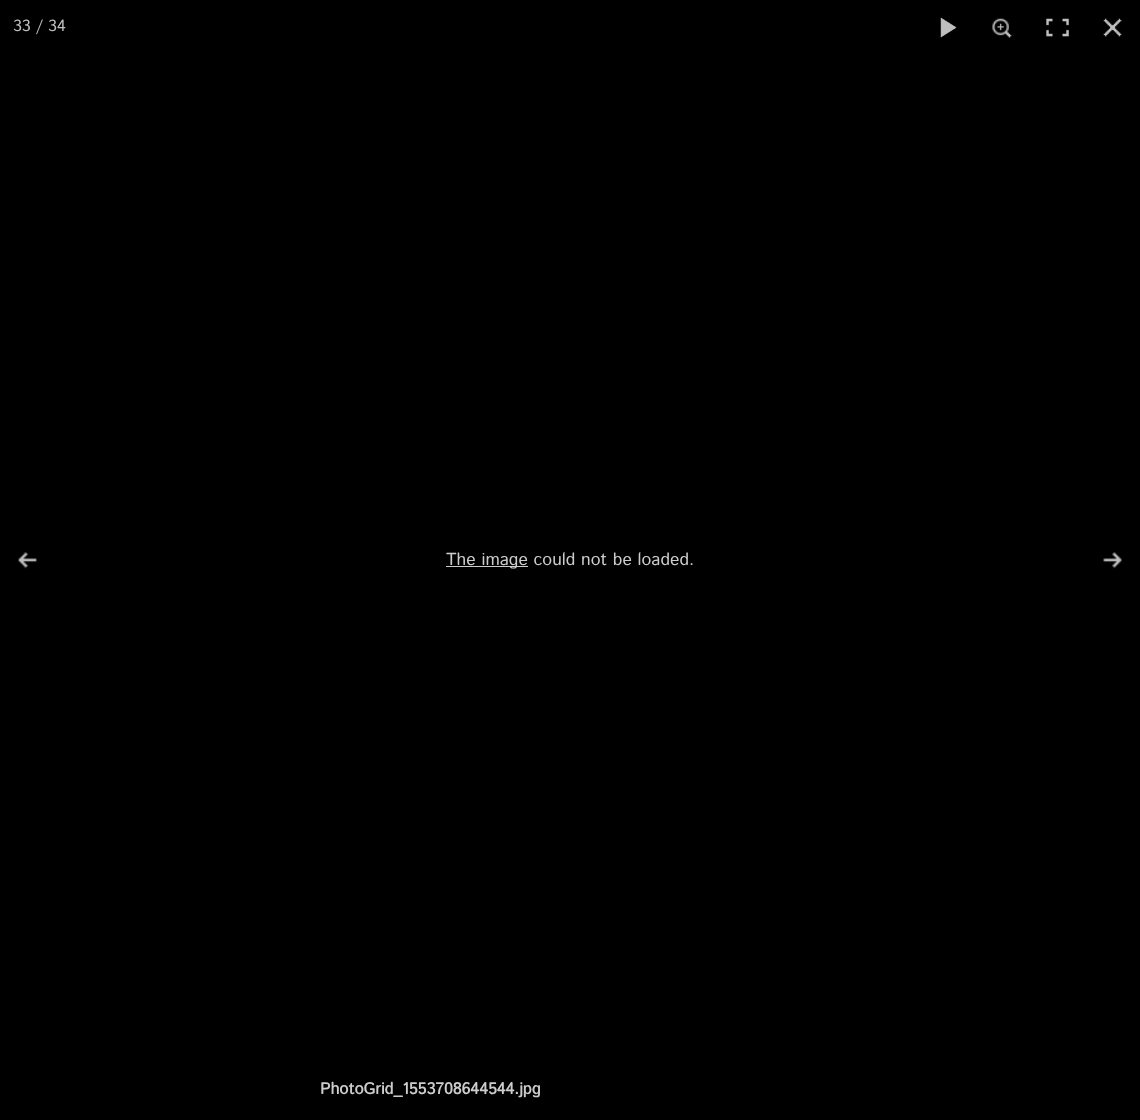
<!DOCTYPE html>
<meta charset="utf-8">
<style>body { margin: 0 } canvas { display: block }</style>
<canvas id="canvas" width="1140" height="1120"></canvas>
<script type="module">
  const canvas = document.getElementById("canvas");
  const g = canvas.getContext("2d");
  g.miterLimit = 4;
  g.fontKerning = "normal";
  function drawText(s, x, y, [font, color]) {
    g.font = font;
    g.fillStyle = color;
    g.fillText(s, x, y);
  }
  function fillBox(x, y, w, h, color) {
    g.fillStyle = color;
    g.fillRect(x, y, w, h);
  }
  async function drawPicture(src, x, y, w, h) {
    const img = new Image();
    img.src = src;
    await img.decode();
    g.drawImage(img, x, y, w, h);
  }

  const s1 = ["16.25px Istok Web", "#BFBFBF"];
  const s2 = ["bold 16.25px Istok Web", "#CCCCCC"];
  const s3 = ["17.5px Istok Web", "#CCCCCC"];

  fillBox(0, 0, 1140, 1120, "#000000");
  drawText("33 / 34", 13, 31, s1);
  await drawPicture("pic1.png", 940, 17, 17, 21);
  await drawPicture("pic2.png", 992, 18, 20, 20);
  await drawPicture("pic3.png", 1046, 18, 23, 19);
  await drawPicture("pic4.png", 1103, 18, 19, 19);
  await drawPicture("pic5.png", 18, 552, 19, 17);
  await drawPicture("pic6.png", 1103, 552, 19, 17);
  drawText("PhotoGrid_1553708644544.jpg", 320, 1094, s2);
  fillBox(446, 566, 82, 1, "#CCCCCC");
  drawText("The image could not be loaded.", 446, 565, s3);
</script>
